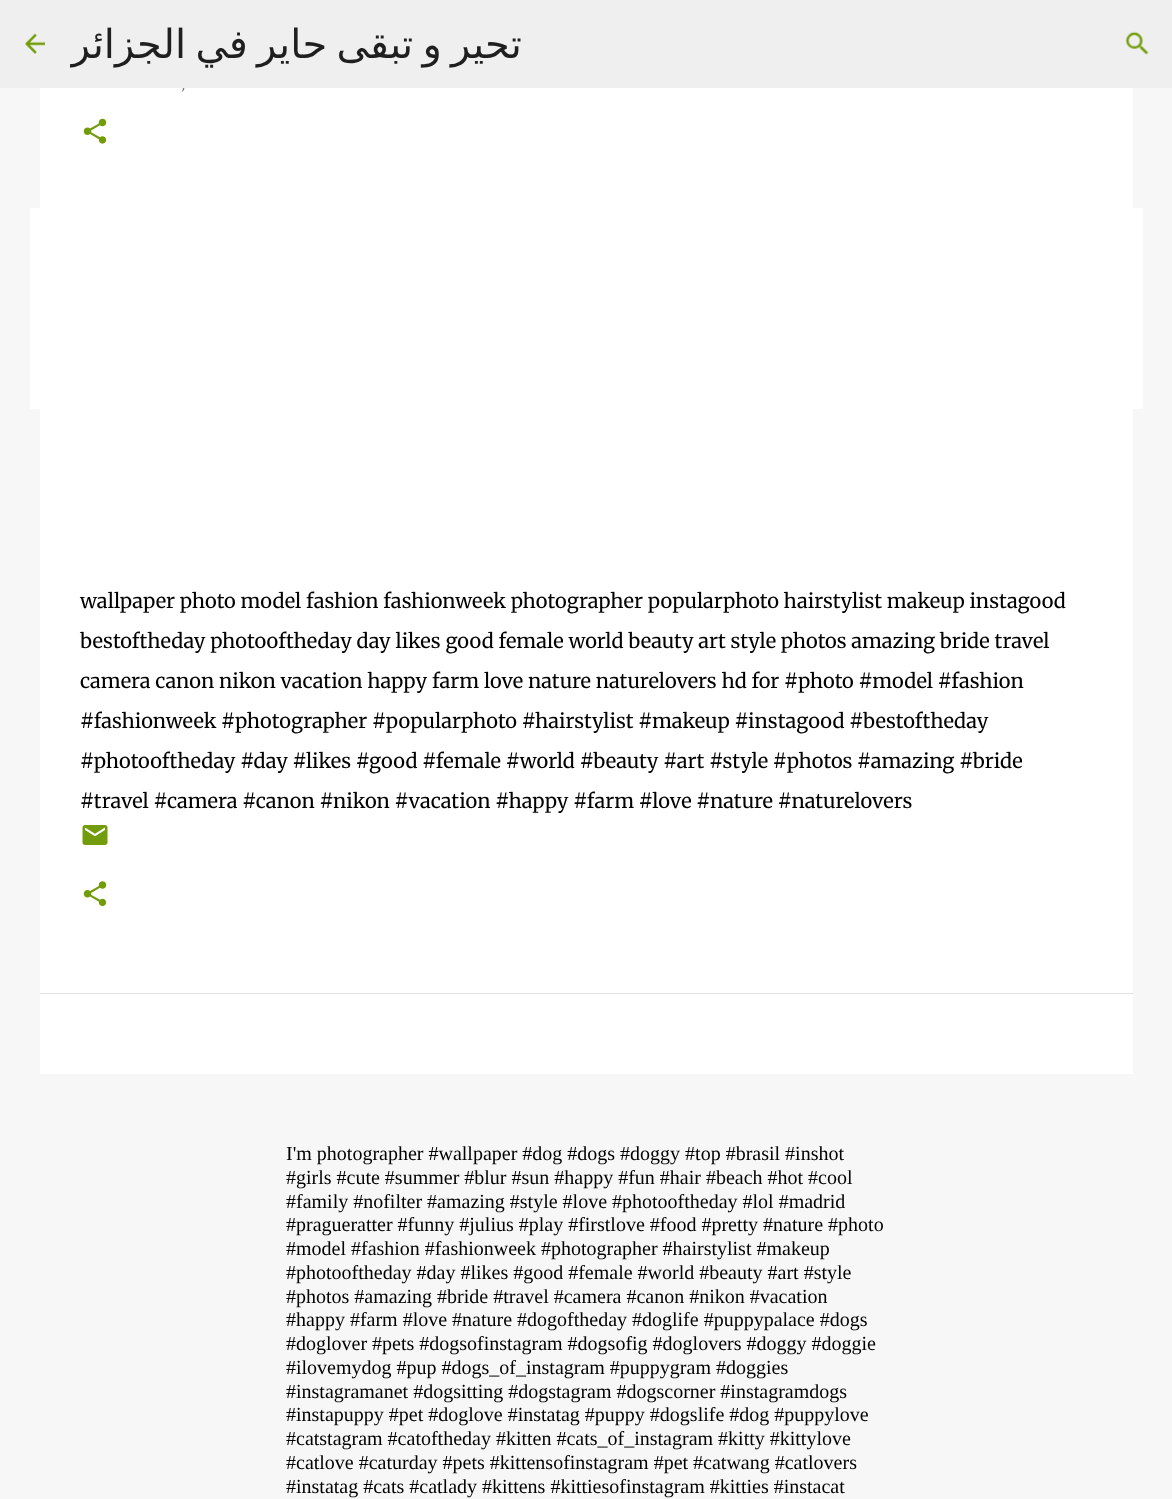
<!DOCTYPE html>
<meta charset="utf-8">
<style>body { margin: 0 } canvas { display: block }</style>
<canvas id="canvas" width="1172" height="1499"></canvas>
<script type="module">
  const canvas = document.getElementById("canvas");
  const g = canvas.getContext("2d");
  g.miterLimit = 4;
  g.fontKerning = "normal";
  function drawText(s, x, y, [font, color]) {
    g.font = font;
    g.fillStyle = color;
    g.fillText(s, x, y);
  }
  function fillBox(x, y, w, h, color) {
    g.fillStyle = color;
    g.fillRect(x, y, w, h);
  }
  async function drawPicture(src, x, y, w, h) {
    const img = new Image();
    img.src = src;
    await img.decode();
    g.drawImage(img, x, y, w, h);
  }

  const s1 = ["italic 15px Merriweather", "#757575"];
  const s2 = ["40px DejaVu Sans", "#1F1F1F"];
  const s3 = ["300 20px Merriweather", "#000000"];
  const s4 = ["20px Liberation Serif", "#000000"];

  fillBox(0, 0, 1172, 1499, "#F7F7F7");
  fillBox(30, 208, 1113, 201, "#FFFFFF");
  fillBox(40, 88, 1093, 905, "#FFFFFF");
  drawText(",", 182, 88, s1);
  fillBox(0, 0, 1172, 88, "#EFEFEF");
  await drawPicture("pic1.png", 25, 33, 20, 21);
  g.save();
  g.beginPath();
  g.rect(70, 20, 453, 48);
  g.clip();
  g.wordSpacing = "-3.5px";
  g.direction = "rtl";
  drawText("تحير و تبقى حاير في الجزائر", 522, 58, s2);
  g.restore();
  await drawPicture("pic2.png", 1125, 31, 24, 24);
  await drawPicture("pic3.png", 83, 118, 24, 26);
  drawText("wallpaper photo model fashion fashionweek photographer popularphoto hairstylist makeup instagood", 80, 608, s3);
  drawText("bestoftheday photooftheday day likes good female world beauty art style photos amazing bride travel", 80, 648, s3);
  drawText("camera canon nikon vacation happy farm love nature naturelovers hd for #photo #model #fashion", 80, 688, s3);
  drawText("#fashionweek #photographer #popularphoto #hairstylist #makeup #instagood #bestoftheday", 80, 728, s3);
  drawText("#photooftheday #day #likes #good #female #world #beauty #art #style #photos #amazing #bride", 80, 768, s3);
  drawText("#travel #camera #canon #nikon #vacation #happy #farm #love #nature #naturelovers", 80, 808, s3);
  await drawPicture("pic4.png", 82, 825, 26, 20);
  await drawPicture("pic5.png", 83, 881, 24, 26);
  fillBox(40, 994, 1093, 80, "#FFFFFF");
  fillBox(40, 993, 1093, 1, "#E0E0E0");
  drawText("I'm photographer #wallpaper #dog #dogs #doggy #top #brasil #inshot", 286, 1160, s4);
  drawText("#girls #cute #summer #blur #sun #happy #fun #hair #beach #hot #cool", 286, 1184, s4);
  drawText("#family #nofilter #amazing #style #love #photooftheday #lol #madrid", 286, 1208, s4);
  drawText("#pragueratter #funny #julius #play #firstlove #food #pretty #nature #photo", 286, 1231, s4);
  drawText("#model #fashion #fashionweek #photographer #hairstylist #makeup", 286, 1255, s4);
  drawText("#photooftheday #day #likes #good #female #world #beauty #art #style", 286, 1279, s4);
  drawText("#photos #amazing #bride #travel #camera #canon #nikon #vacation", 286, 1303, s4);
  drawText("#happy #farm #love #nature #dogoftheday #doglife #puppypalace #dogs", 286, 1326, s4);
  drawText("#doglover #pets #dogsofinstagram #dogsofig #doglovers #doggy #doggie", 286, 1350, s4);
  drawText("#ilovemydog #pup #dogs_of_instagram #puppygram #doggies", 286, 1374, s4);
  drawText("#instagramanet #dogsitting #dogstagram #dogscorner #instagramdogs", 286, 1398, s4);
  drawText("#instapuppy #pet #doglove #instatag #puppy #dogslife #dog #puppylove", 286, 1421, s4);
  drawText("#catstagram #catoftheday #kitten #cats_of_instagram #kitty #kittylove", 286, 1445, s4);
  drawText("#catlove #caturday #pets #kittensofinstagram #pet #catwang #catlovers", 286, 1469, s4);
  drawText("#instatag #cats #catlady #kittens #kittiesofinstagram #kitties #instacat", 286, 1493, s4);
</script>
